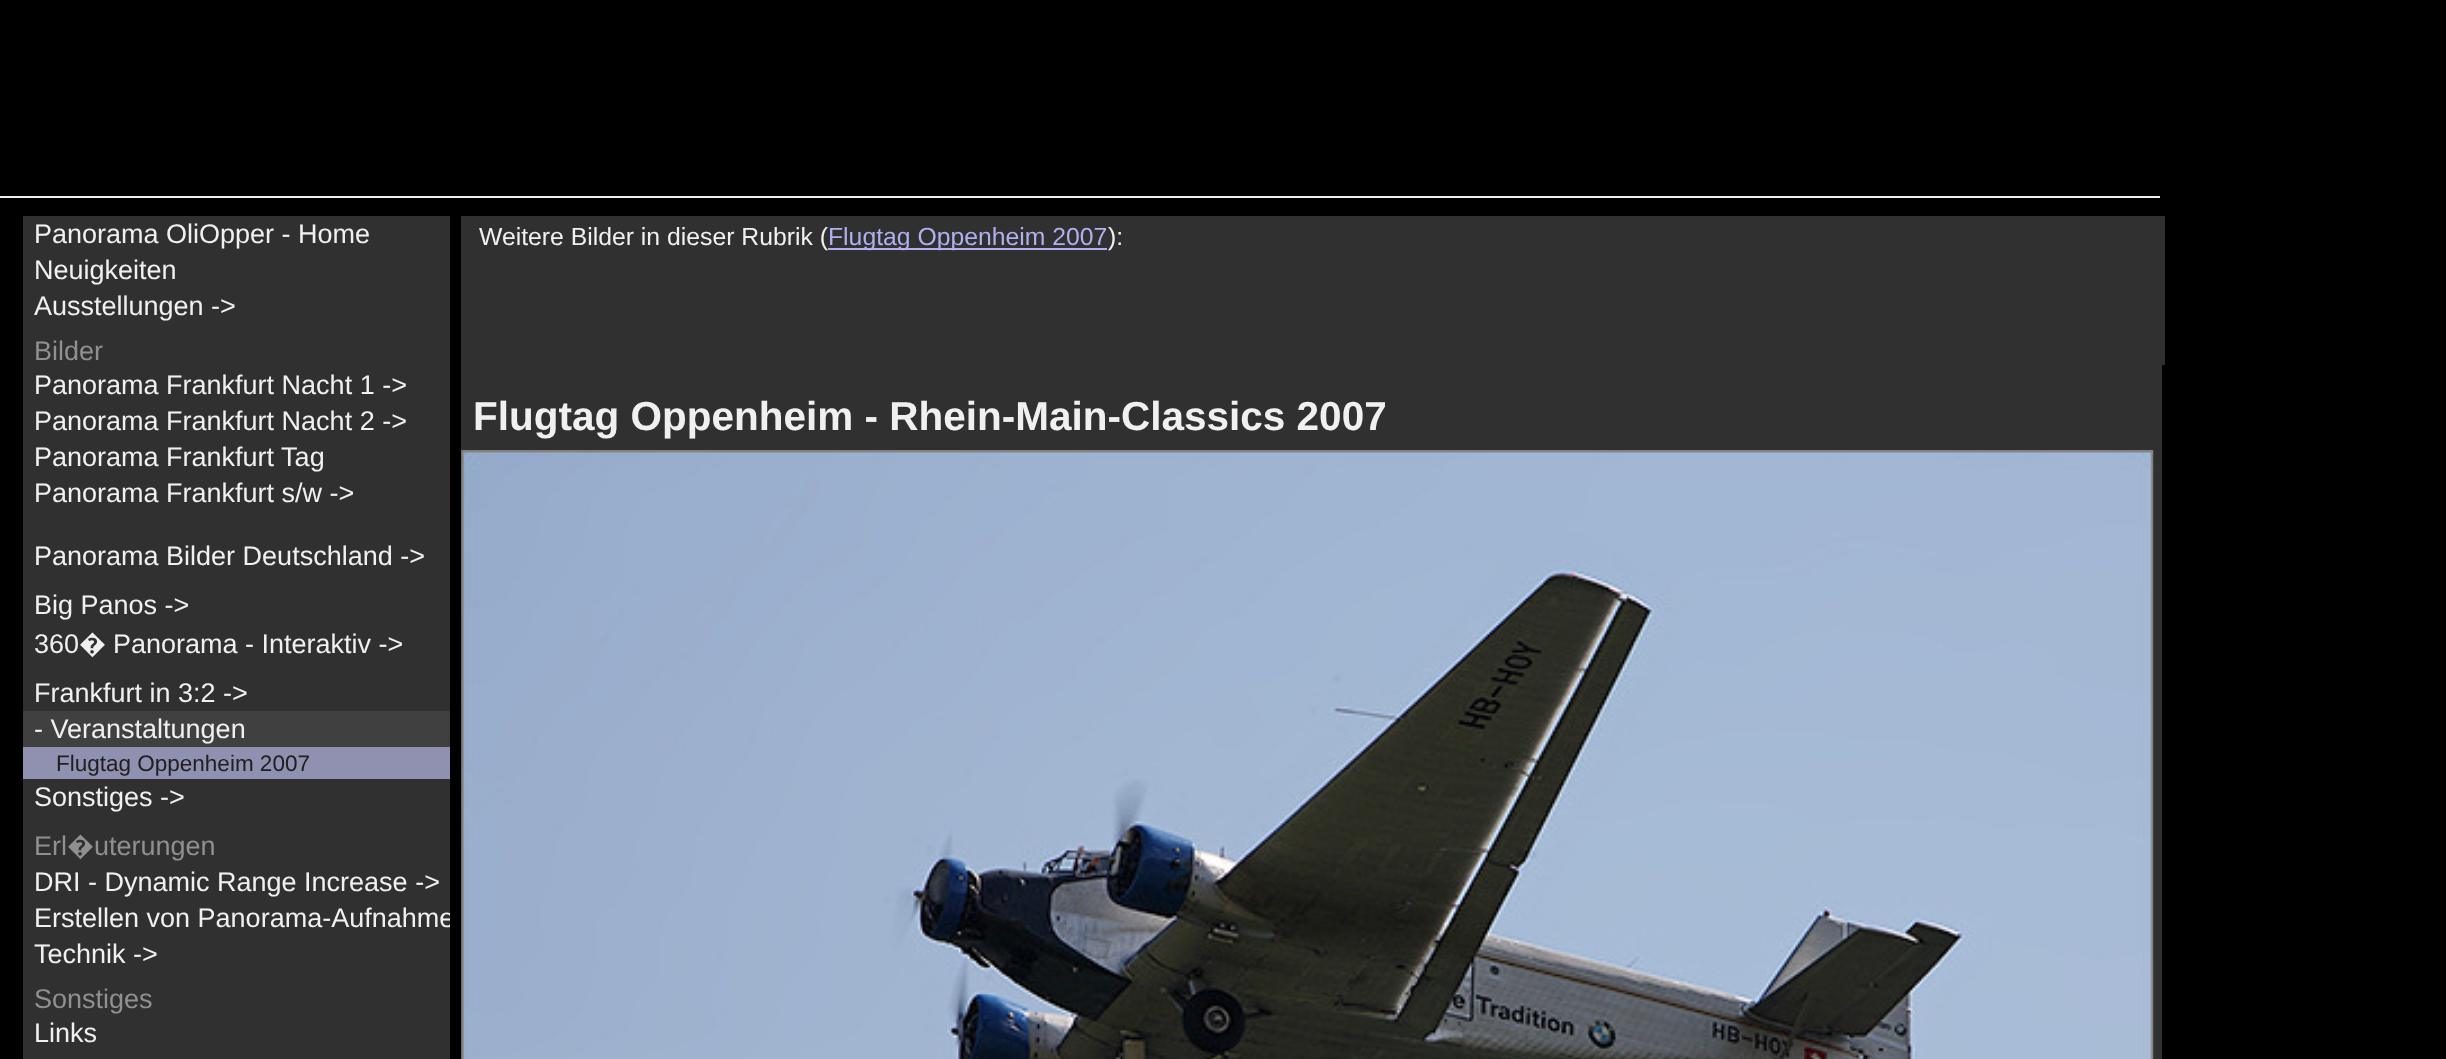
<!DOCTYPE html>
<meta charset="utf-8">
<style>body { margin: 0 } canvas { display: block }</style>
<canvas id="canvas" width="2446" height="1059"></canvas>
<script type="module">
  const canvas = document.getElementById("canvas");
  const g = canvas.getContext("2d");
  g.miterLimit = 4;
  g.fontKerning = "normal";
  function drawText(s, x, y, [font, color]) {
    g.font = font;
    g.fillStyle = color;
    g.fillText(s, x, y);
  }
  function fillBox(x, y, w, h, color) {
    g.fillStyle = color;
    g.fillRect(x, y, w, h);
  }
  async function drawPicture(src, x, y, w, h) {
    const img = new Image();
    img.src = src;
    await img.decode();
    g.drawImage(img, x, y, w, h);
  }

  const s1 = ["27px Liberation Sans", "#F0F0F0"];
  const s2 = ["27px Liberation Sans", "#909090"];
  const s3 = ["27px Noto Sans", "#F0F0F0"];
  const s4 = ["22.5px Liberation Sans", "#202020"];
  const s5 = ["27px Noto Sans", "#909090"];
  const s6 = ["24.75px Liberation Sans", "#F0F0F0"];
  const s7 = ["24.75px Liberation Sans", "#B0B0F0"];
  const s8 = ["bold 40.5px Liberation Sans", "#F0F0F0"];

  fillBox(0, 0, 2446, 1059, "#000000");
  fillBox(0, 196, 2160, 2, "#F0F0F0");
  fillBox(23, 216, 427, 495, "#303030");
  drawText("Panorama OliOpper - Home", 34, 243, s1);
  drawText("Neuigkeiten", 34, 279, s1);
  drawText("Ausstellungen ->", 34, 315, s1);
  drawText("Bilder", 34, 360, s2);
  drawText("Panorama Frankfurt Nacht 1 ->", 34, 394, s1);
  drawText("Panorama Frankfurt Nacht 2 ->", 34, 430, s1);
  drawText("Panorama Frankfurt Tag", 34, 466, s1);
  drawText("Panorama Frankfurt s/w ->", 34, 502, s1);
  drawText("Panorama Bilder Deutschland ->", 34, 565, s1);
  drawText("Big Panos ->", 34, 614, s1);
  drawText("360", 34, 653, s1);
  drawText("�", 79, 653, s3);
  drawText("Panorama - Interaktiv ->", 113, 653, s1);
  drawText("Frankfurt in 3:2 ->", 34, 702, s1);
  fillBox(23, 711, 427, 36, "#404040");
  drawText("- Veranstaltungen", 34, 738, s1);
  fillBox(23, 747, 427, 32, "#9090B0");
  drawText("Flugtag Oppenheim 2007", 56, 771, s4);
  fillBox(23, 779, 427, 280, "#303030");
  drawText("Sonstiges ->", 34, 806, s1);
  drawText("Erl", 34, 855, s2);
  drawText("�", 67, 855, s5);
  drawText("uterungen", 94, 855, s2);
  drawText("DRI - Dynamic Range Increase ->", 34, 891, s1);
  g.save();
  g.beginPath();
  g.rect(23, 216, 427, 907);
  g.clip();
  drawText("Erstellen von Panorama-Aufnahme", 34, 927, s1);
  g.restore();
  drawText("Technik ->", 34, 963, s1);
  drawText("Sonstiges", 34, 1008, s2);
  drawText("Links", 34, 1042, s1);
  fillBox(461, 216, 1704, 149, "#303030");
  drawText("Weitere Bilder in dieser Rubrik (", 479, 245, s6);
  fillBox(828, 248, 279, 2, "#B0B0F0");
  drawText("Flugtag Oppenheim 2007", 828, 245, s7);
  drawText("):", 1108, 245, s6);
  fillBox(461, 365, 1701, 694, "#303030");
  drawText("Flugtag Oppenheim - Rhein-Main-Classics 2007", 473, 430, s8);
  await drawPicture("pic1.png", 461, 450, 1693, 609);
</script>
